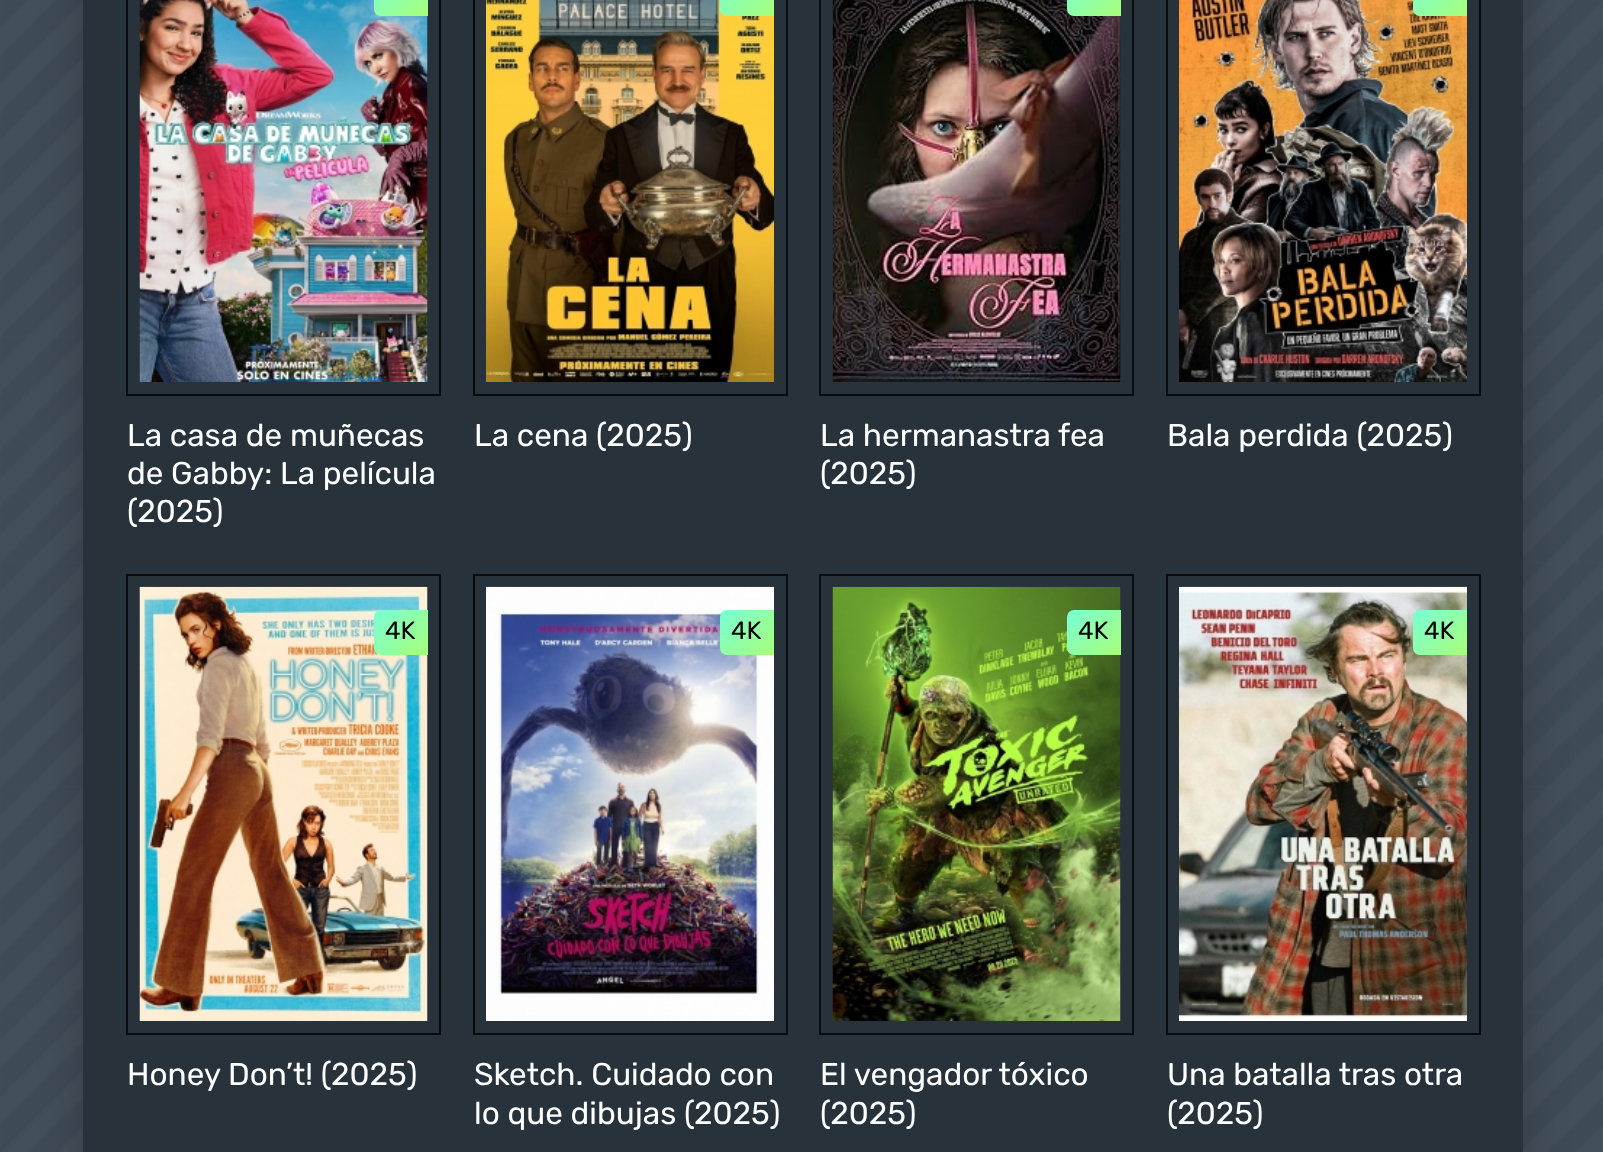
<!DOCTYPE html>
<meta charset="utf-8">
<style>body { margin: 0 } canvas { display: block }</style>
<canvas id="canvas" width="1603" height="1152"></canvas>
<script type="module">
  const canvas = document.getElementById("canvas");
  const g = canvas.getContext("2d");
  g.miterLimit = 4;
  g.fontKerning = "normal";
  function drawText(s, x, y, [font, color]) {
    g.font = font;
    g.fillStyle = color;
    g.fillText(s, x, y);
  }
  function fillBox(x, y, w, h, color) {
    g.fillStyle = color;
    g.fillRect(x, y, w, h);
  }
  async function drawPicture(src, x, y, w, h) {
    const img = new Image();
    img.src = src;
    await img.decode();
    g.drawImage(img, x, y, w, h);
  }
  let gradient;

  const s1 = ["31.5px Rubik", "#FFFFFF"];
  const s2 = ["25px Rubik", "#000000"];

  fillBox(0, 0, 1603, 1152, "#FFFFFF");
  await drawPicture("pic1.png", 0, 0, 1603, 1152);
  g.fillStyle = "rgba(0, 0, 0, 0.2)";
  g.filter = "blur(22.5px)";
  g.beginPath();
  g.rect(83, -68, 1440, 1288);
  g.fill();
  g.filter = "none";
  fillBox(83, 0, 1440, 1152, "#27323B");
  g.strokeStyle = "#080A0C";
  g.lineWidth = 2;
  g.strokeRect(127, -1, 313, 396);
  await drawPicture("pic2.png", 139, 0, 289, 382);
  gradient = g.createLinearGradient(376, -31, 425, 18);
  gradient.addColorStop(0, "#78FFD6");
  gradient.addColorStop(1, "#A8FF78");
  g.fillStyle = gradient;
  g.beginPath();
  g.moveTo(381, -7);
  g.lineTo(428, -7);
  g.lineTo(428, 16);
  g.lineTo(381, 16);
  g.bezierCurveTo(377, 16, 374, 13, 374, 9);
  g.lineTo(374, 0);
  g.bezierCurveTo(374, -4, 377, -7, 381, -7);
  g.closePath();
  g.fill();
  drawText("La casa de muñecas", 127, 446, s1);
  drawText("de Gabby: La película", 127, 484, s1);
  drawText("(2025)", 127, 522, s1);
  g.strokeRect(474, -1, 313, 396);
  await drawPicture("pic3.png", 486, 0, 288, 382);
  gradient = g.createLinearGradient(722, -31, 772, 18);
  gradient.addColorStop(0, "#78FFD6");
  gradient.addColorStop(1, "#A8FF78");
  g.fillStyle = gradient;
  g.beginPath();
  g.moveTo(727, -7);
  g.lineTo(774, -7);
  g.lineTo(774, 16);
  g.lineTo(727, 16);
  g.bezierCurveTo(723, 16, 720, 13, 720, 9);
  g.lineTo(720, 0);
  g.bezierCurveTo(720, -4, 723, -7, 727, -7);
  g.closePath();
  g.fill();
  drawText("La cena (2025)", 474, 446, s1);
  g.strokeRect(820, -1, 313, 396);
  await drawPicture("pic4.png", 832, 0, 289, 382);
  gradient = g.createLinearGradient(1069, -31, 1118, 18);
  gradient.addColorStop(0, "#78FFD6");
  gradient.addColorStop(1, "#A8FF78");
  g.fillStyle = gradient;
  g.beginPath();
  g.moveTo(1074, -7);
  g.lineTo(1121, -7);
  g.lineTo(1121, 16);
  g.lineTo(1074, 16);
  g.bezierCurveTo(1070, 16, 1067, 13, 1067, 9);
  g.lineTo(1067, 0);
  g.bezierCurveTo(1067, -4, 1070, -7, 1074, -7);
  g.closePath();
  g.fill();
  drawText("La hermanastra fea", 820, 446, s1);
  drawText("(2025)", 820, 484, s1);
  g.strokeRect(1167, -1, 313, 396);
  await drawPicture("pic5.png", 1179, 0, 288, 382);
  gradient = g.createLinearGradient(1415, -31, 1465, 18);
  gradient.addColorStop(0, "#78FFD6");
  gradient.addColorStop(1, "#A8FF78");
  g.fillStyle = gradient;
  g.beginPath();
  g.moveTo(1420, -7);
  g.lineTo(1467, -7);
  g.lineTo(1467, 16);
  g.lineTo(1420, 16);
  g.bezierCurveTo(1416, 16, 1413, 13, 1413, 9);
  g.lineTo(1413, 0);
  g.bezierCurveTo(1413, -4, 1416, -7, 1420, -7);
  g.closePath();
  g.fill();
  drawText("Bala perdida (2025)", 1167, 446, s1);
  g.strokeRect(127, 575, 313, 459);
  await drawPicture("pic6.png", 139, 586, 289, 435);
  gradient = g.createLinearGradient(376, 608, 425, 657);
  gradient.addColorStop(0, "#78FFD6");
  gradient.addColorStop(1, "#A8FF78");
  g.fillStyle = gradient;
  g.beginPath();
  g.roundRect(374, 610, 54, 45, [7, 0, 0, 7]);
  g.fill();
  drawText("4K", 385, 639, s2);
  drawText("Honey Don’t! (2025)", 127, 1085, s1);
  g.strokeRect(474, 575, 313, 459);
  await drawPicture("pic7.png", 486, 586, 288, 435);
  gradient = g.createLinearGradient(722, 608, 772, 657);
  gradient.addColorStop(0, "#78FFD6");
  gradient.addColorStop(1, "#A8FF78");
  g.fillStyle = gradient;
  g.beginPath();
  g.roundRect(720, 610, 54, 45, [7, 0, 0, 7]);
  g.fill();
  drawText("4K", 731, 639, s2);
  drawText("Sketch. Cuidado con", 474, 1085, s1);
  drawText("lo que dibujas (2025)", 474, 1124, s1);
  g.strokeRect(820, 575, 313, 459);
  await drawPicture("pic8.png", 832, 586, 289, 435);
  gradient = g.createLinearGradient(1069, 608, 1118, 657);
  gradient.addColorStop(0, "#78FFD6");
  gradient.addColorStop(1, "#A8FF78");
  g.fillStyle = gradient;
  g.beginPath();
  g.roundRect(1067, 610, 54, 45, [7, 0, 0, 7]);
  g.fill();
  drawText("4K", 1078, 639, s2);
  drawText("El vengador tóxico", 820, 1085, s1);
  drawText("(2025)", 820, 1124, s1);
  g.strokeRect(1167, 575, 313, 459);
  await drawPicture("pic9.png", 1179, 586, 288, 435);
  gradient = g.createLinearGradient(1415, 608, 1465, 657);
  gradient.addColorStop(0, "#78FFD6");
  gradient.addColorStop(1, "#A8FF78");
  g.fillStyle = gradient;
  g.beginPath();
  g.roundRect(1413, 610, 54, 45, [7, 0, 0, 7]);
  g.fill();
  drawText("4K", 1424, 639, s2);
  drawText("Una batalla tras otra", 1167, 1085, s1);
  drawText("(2025)", 1167, 1124, s1);
</script>
